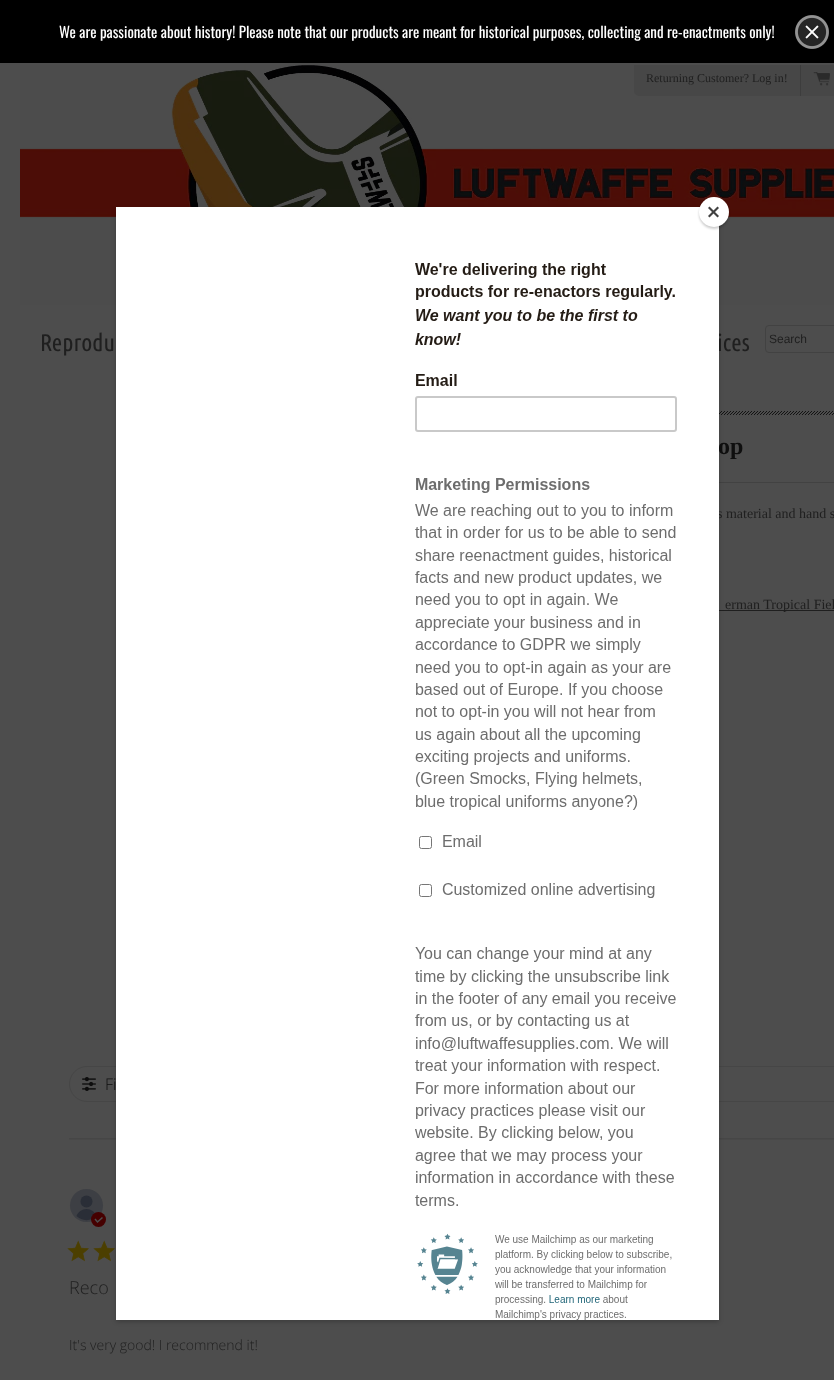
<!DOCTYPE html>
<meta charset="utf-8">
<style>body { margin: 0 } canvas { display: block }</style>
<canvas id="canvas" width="834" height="1380"></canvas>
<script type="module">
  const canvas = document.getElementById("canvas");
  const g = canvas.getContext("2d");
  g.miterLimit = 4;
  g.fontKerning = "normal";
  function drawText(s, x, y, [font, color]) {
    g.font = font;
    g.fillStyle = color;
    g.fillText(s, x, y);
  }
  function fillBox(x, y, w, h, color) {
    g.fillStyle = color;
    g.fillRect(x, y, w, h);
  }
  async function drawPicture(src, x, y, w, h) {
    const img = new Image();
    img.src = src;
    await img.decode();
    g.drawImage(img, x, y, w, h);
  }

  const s1 = ["15px Oswald", "#FFFFFF"];
  const s2 = ["12px Liberation Serif", "#1F1F1F"];
  const s3 = ["24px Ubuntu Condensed", "#1F1F1F"];
  const s4 = ["12px Liberation Sans", "#1F1F1F"];
  const s5 = ["bold 24px Liberation Serif", "#0F0F0F"];
  const s6 = ["14px Liberation Serif", "#1F1F1F"];
  const s7 = ["300 16px Open Sans", "#0F0F0F"];
  const s8 = ["300 18px Open Sans", "#1F1F1F"];
  const s9 = ["300 14px Open Sans", "#1F1F1F"];

  fillBox(0, 0, 834, 1380, "#4D4D4D");
  fillBox(0, 0, 834, 63, "#000000");
  drawText("We are passionate about history! Please note that our products are meant for historical purposes, collecting and re-enactments only!", 59, 38, s1);
  await drawPicture("pic1.png", 795, 15, 34, 34);
  await drawPicture("pic2.png", 20, 65, 814, 240);
  g.fillStyle = "#474747";
  g.beginPath();
  g.moveTo(634, 65);
  g.lineTo(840, 65);
  g.lineTo(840, 90);
  g.bezierCurveTo(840, 93.5, 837.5, 96, 834, 96);
  g.lineTo(640, 96);
  g.bezierCurveTo(636.5, 96, 634, 93.5, 634, 90);
  g.closePath();
  g.fill();
  fillBox(800, 65, 1, 31, "#3D3D3D");
  drawText("Returning Customer? Log in!", 646, 82, s2);
  await drawPicture("pic3.png", 813, 71, 17, 15);
  drawText("Reprodu", 40, 351, s3);
  drawText("ices", 717, 351, s3);
  g.beginPath();
  g.roundRect(765.5, 325.5, 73, 27, 3.5);
  g.strokeStyle = "#424242";
  g.stroke();
  drawText("Search", 769, 343, s4);
  await drawPicture("pic4.png", 115, 471, 1, 206);
  await drawPicture("pic5.png", 719, 411, 115, 4);
  fillBox(719, 482, 115, 1, "#424242");
  drawText("op", 718, 454, s5);
  drawText("s material and hand s", 717, 518, s6);
  fillBox(715, 610, 119, 1, "#1F1F1F");
  drawText("erman Tropical Fiel", 725, 609, s6);
  g.beginPath();
  g.roundRect(69.5, 1066.5, 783, 35, 17.5);
  g.strokeStyle = "#464646";
  g.stroke();
  await drawPicture("pic6.png", 82, 1077, 14, 14);
  drawText("Fi", 105, 1090, s7);
  await drawPicture("pic7.png", 69, 1138, 765, 2);
  g.fillStyle = "#3D3F44";
  g.beginPath();
  g.arc(86.5, 1205.5, 16.5, 0, Math.PI * 2);
  g.fill();
  g.fillStyle = "#2A2E37";
  g.beginPath();
  g.arc(86.5, 1201.5, 6, 0, Math.PI * 2);
  g.fill();
  g.beginPath();
  g.moveTo(86.5, 1209);
  g.bezierCurveTo(91, 1209, 95, 1212, 96.5, 1216);
  g.bezierCurveTo(91, 1221.5, 82, 1221.5, 76.5, 1216);
  g.bezierCurveTo(78, 1212, 82, 1209, 86.5, 1209);
  g.closePath();
  g.fill();
  g.fillStyle = "#450000";
  g.beginPath();
  g.arc(98.5, 1219.5, 7.5, 0, Math.PI * 2);
  g.fill();
  g.beginPath();
  g.moveTo(95, 1219);
  g.lineTo(97.5, 1222);
  g.lineTo(102.5, 1217.5);
  g.strokeStyle = "#4D4D4D";
  g.lineWidth = 1.5;
  g.stroke();
  await drawPicture("pic8.png", 67, 1240, 22, 22);
  await drawPicture("pic8.png", 93, 1240, 22, 22);
  drawText("Reco", 69, 1294, s8);
  drawText("It's very good! I recommend it!", 69, 1350, s9);
  g.fillStyle = "rgba(0, 0, 0, 0.2)";
  g.filter = "blur(2px)";
  g.beginPath();
  g.rect(116, 209, 603, 1113);
  g.fill();
  g.filter = "none";
  await drawPicture("pic9.png", 116, 207, 603, 1113);
  g.filter = "blur(1px)";
  g.beginPath();
  g.roundRect(699, 199, 30, 30, 15);
  g.fill();
  g.filter = "none";
  g.fillStyle = "#FFFFFF";
  g.beginPath();
  g.arc(714, 212, 15, 0, Math.PI * 2);
  g.fill();
  g.fillStyle = "#414141";
  g.beginPath();
  g.moveTo(717.5, 206.5);
  g.lineTo(719, 208);
  g.lineTo(709.5, 217.5);
  g.lineTo(708, 216);
  g.closePath();
  g.fill();
  g.beginPath();
  g.moveTo(708, 208);
  g.lineTo(709.5, 206.5);
  g.lineTo(719, 216);
  g.lineTo(717.5, 217.5);
  g.closePath();
  g.fill();
</script>
